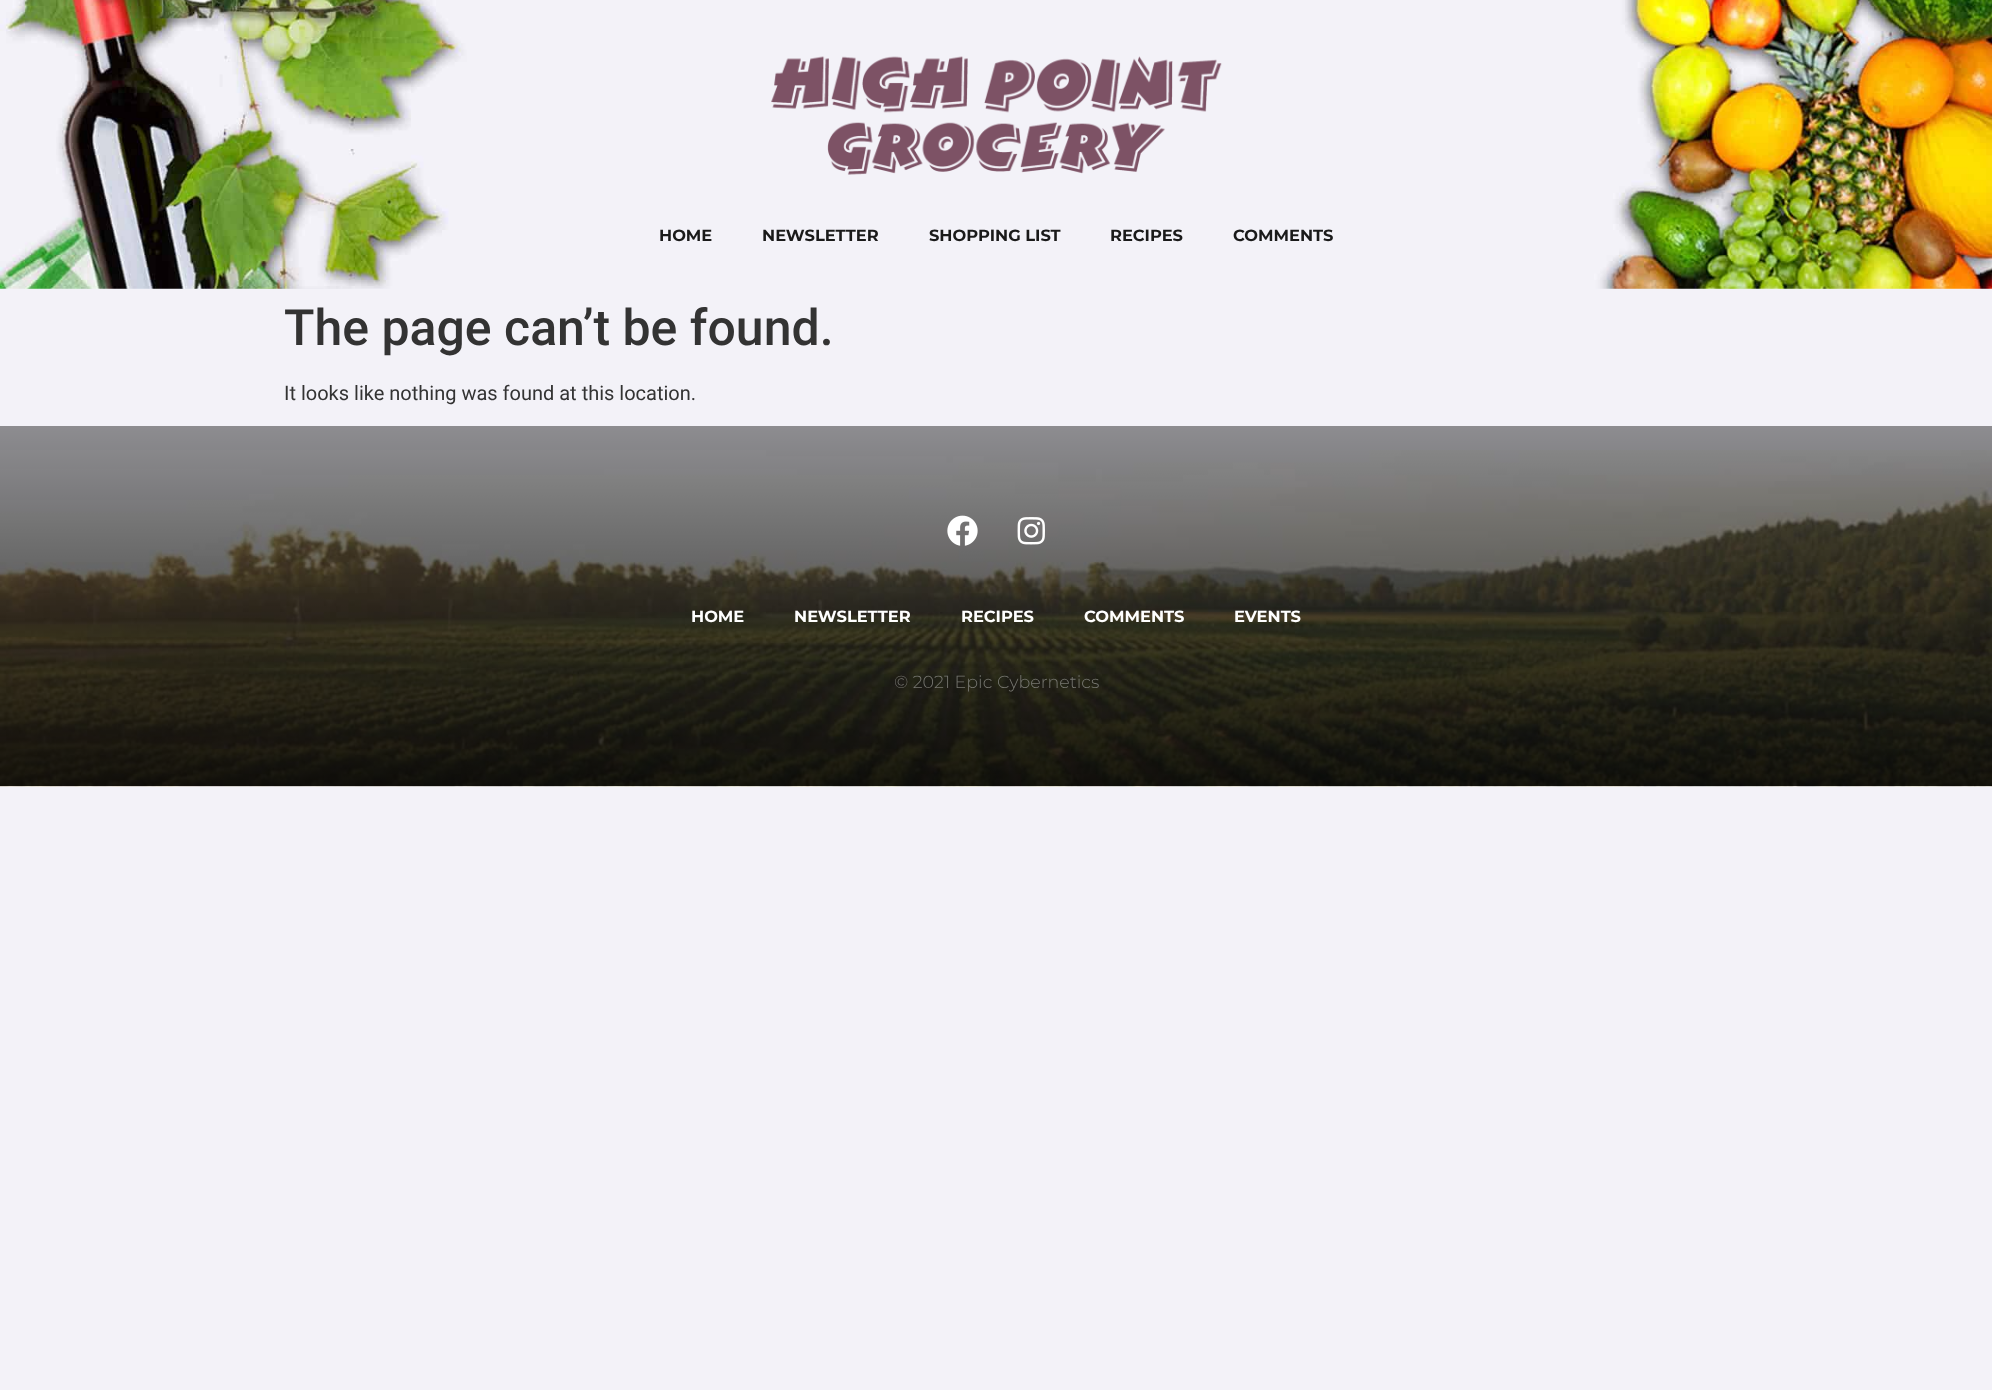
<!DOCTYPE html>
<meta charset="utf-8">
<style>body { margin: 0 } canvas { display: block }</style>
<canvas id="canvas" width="1992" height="1390"></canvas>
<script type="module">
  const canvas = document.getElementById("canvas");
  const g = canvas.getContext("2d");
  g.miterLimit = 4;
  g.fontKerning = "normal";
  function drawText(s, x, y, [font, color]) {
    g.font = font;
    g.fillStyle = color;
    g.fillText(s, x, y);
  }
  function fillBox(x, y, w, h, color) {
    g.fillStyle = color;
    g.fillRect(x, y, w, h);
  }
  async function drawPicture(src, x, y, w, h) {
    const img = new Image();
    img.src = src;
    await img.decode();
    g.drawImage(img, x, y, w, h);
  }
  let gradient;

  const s1 = ["bold 16.25px Montserrat", "#1A1A1A"];
  const s2 = ["500 50px Roboto", "#333333"];
  const s3 = ["20px Roboto", "#333333"];
  const s4 = ["bold 16.25px Montserrat", "#FFFFFF"];
  const s5 = ["300 17.5px Montserrat", "#777771"];

  fillBox(0, 0, 1992, 1390, "#F3F2F8");
  await drawPicture("pic1.png", 0, 0, 1992, 289);
  await drawPicture("pic2.png", 771, 56, 451, 119);
  drawText("HOME", 659, 241, s1);
  drawText("NEWSLETTER", 762, 241, s1);
  drawText("SHOPPING LIST", 929, 241, s1);
  drawText("RECIPES", 1110, 241, s1);
  drawText("COMMENTS", 1233, 241, s1);
  drawText("The page can’t be found.", 284, 345, s2);
  drawText("It looks like nothing was found at this location.", 284, 400, s3);
  await drawPicture("pic3.png", 0, 450, 1992, 337);
  gradient = g.createLinearGradient(996, 426, 996, 786);
  gradient.addColorStop(0, "rgba(0, 0, 0, 0.42)");
  gradient.addColorStop(1, "rgba(0, 0, 0, 0.86)");
  g.fillStyle = gradient;
  g.fillRect(0, 426, 1992, 360);
  await drawPicture("pic4.png", 947, 515, 31, 31);
  await drawPicture("pic5.png", 1017, 517, 28, 28);
  drawText("HOME", 691, 622, s4);
  drawText("NEWSLETTER", 794, 622, s4);
  drawText("RECIPES", 961, 622, s4);
  drawText("COMMENTS", 1084, 622, s4);
  drawText("EVENTS", 1234, 622, s4);
  drawText("© 2021 Epic Cybernetics", 894, 688, s5);
</script>
